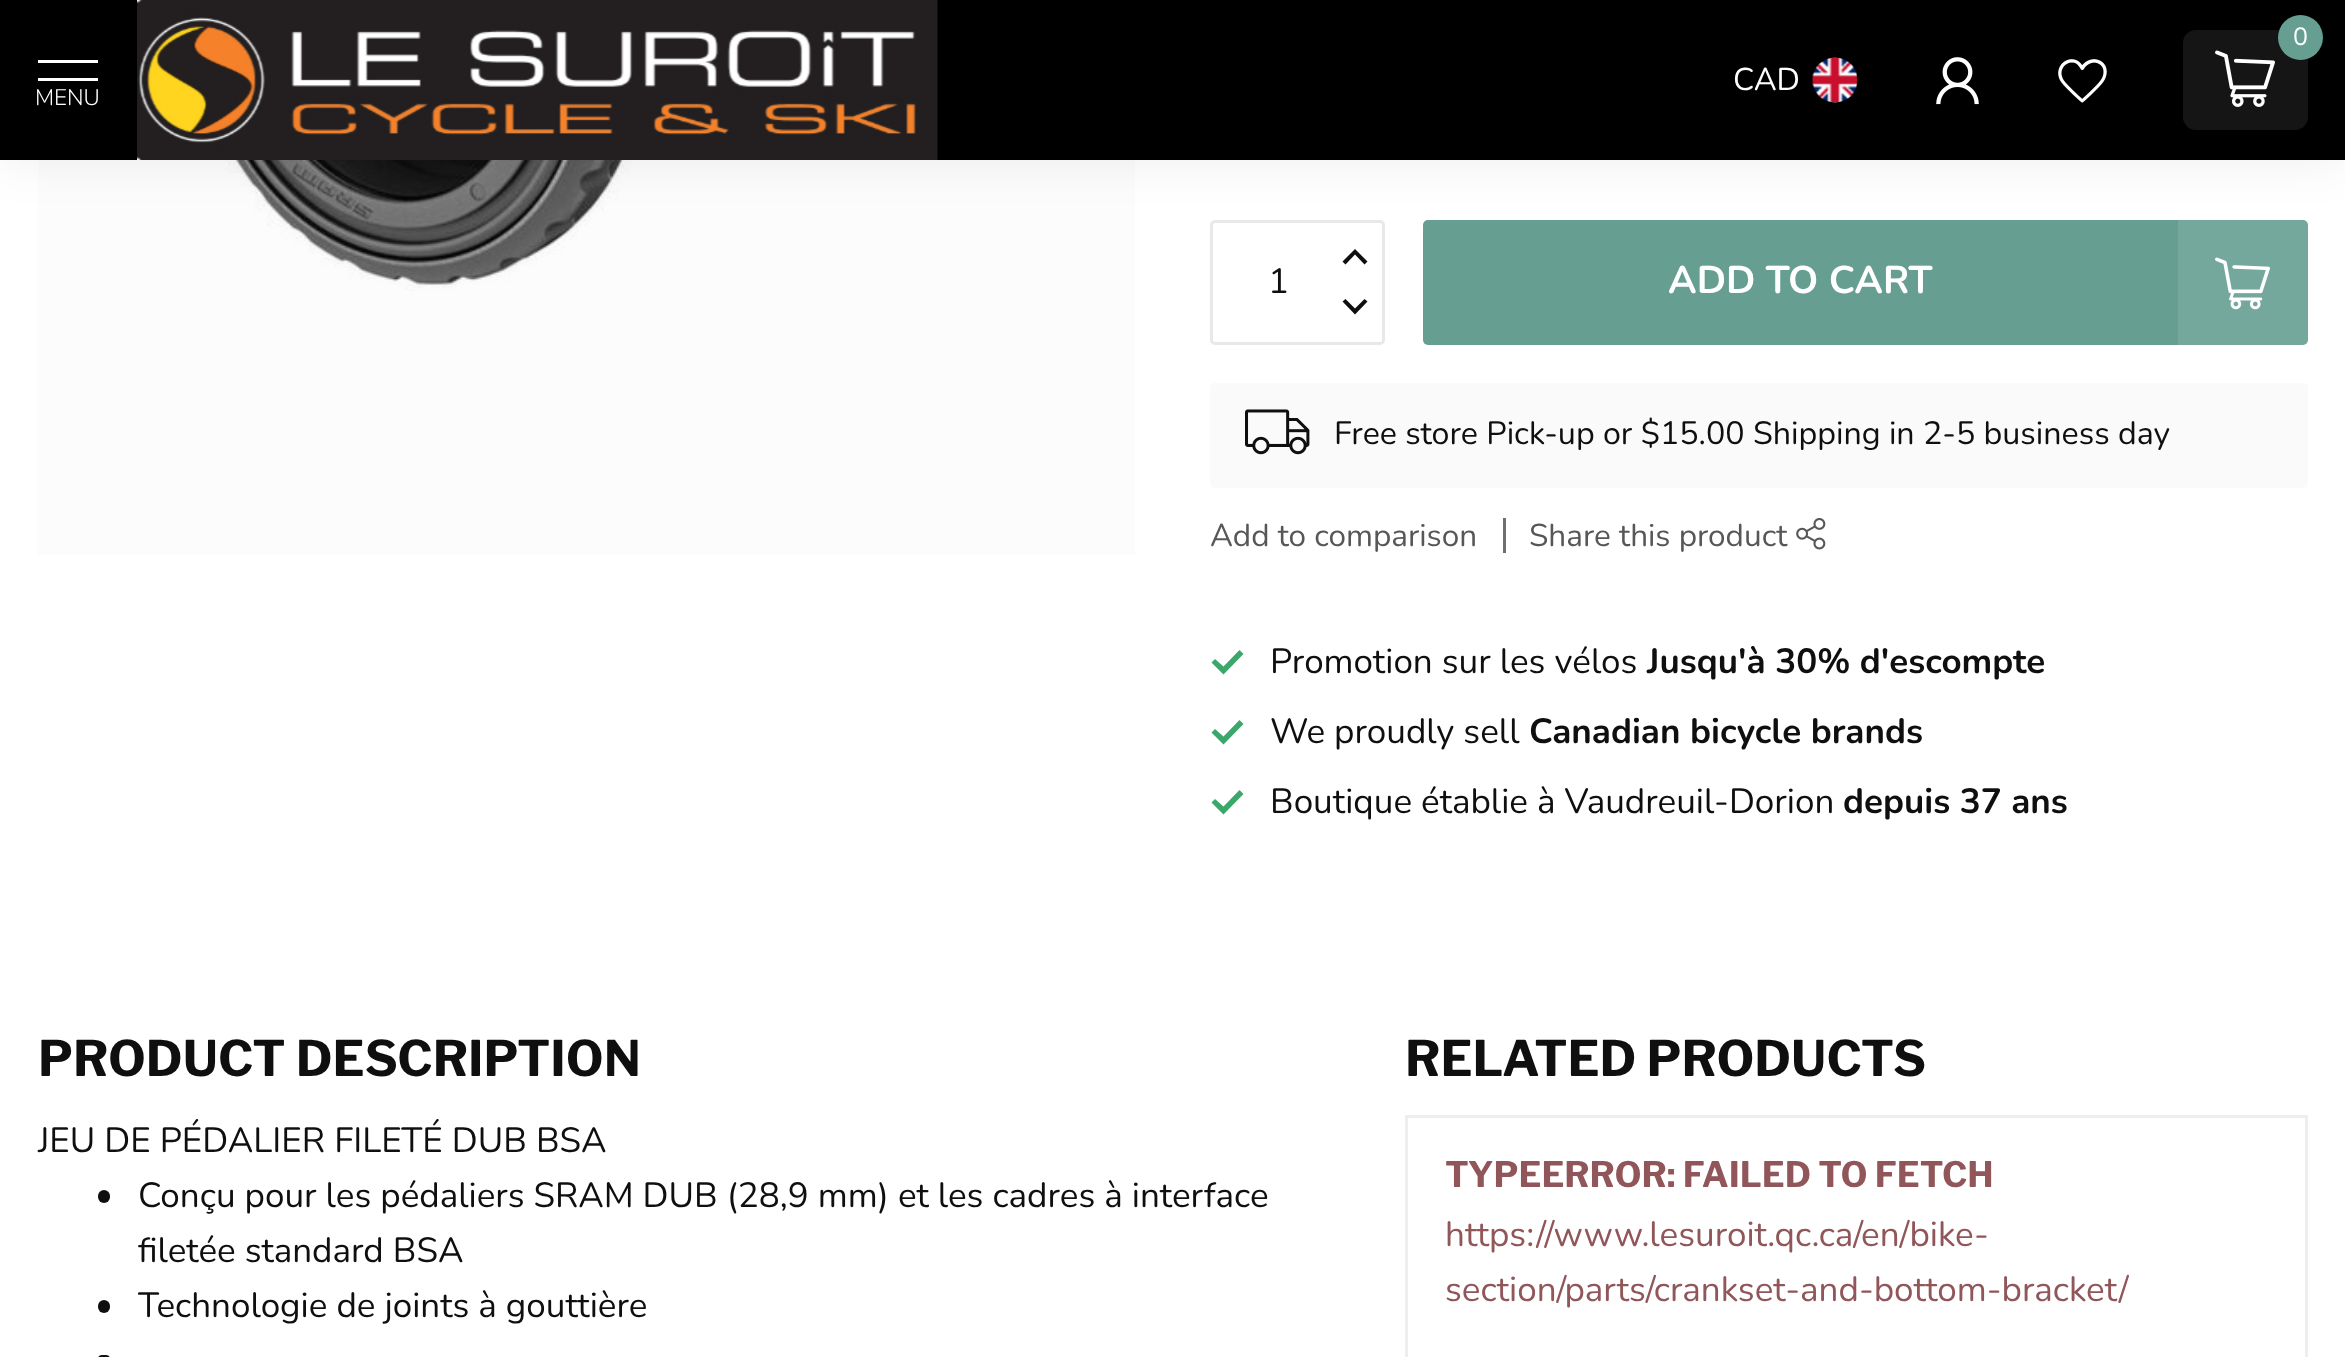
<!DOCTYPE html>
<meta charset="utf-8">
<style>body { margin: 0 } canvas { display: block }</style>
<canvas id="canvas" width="2345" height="1357"></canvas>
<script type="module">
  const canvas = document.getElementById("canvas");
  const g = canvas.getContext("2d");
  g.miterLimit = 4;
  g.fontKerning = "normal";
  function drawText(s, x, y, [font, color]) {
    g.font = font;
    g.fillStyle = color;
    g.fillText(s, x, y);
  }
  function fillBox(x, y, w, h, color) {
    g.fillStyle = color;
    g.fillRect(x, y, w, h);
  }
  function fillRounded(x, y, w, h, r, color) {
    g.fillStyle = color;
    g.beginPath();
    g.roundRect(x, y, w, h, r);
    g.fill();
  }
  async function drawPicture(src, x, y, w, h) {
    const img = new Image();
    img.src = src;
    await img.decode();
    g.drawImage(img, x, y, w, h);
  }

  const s1 = ["25px Nunito", "#FFFFFF"];
  const s2 = ["31.5px Nunito", "#FFFFFF"];
  const s3 = ["300 22.5px Nunito", "#FFFFFF"];
  const s4 = ["35px Nunito", "#0F0F0F"];
  const s5 = ["bold 38.5px Nunito", "#FFFFFF"];
  const s6 = ["32.2px Nunito", "#0F0F0F"];
  const s7 = ["31.5px Nunito", "#575757"];
  const s8 = ["bold 35px Nunito", "#0F0F0F"];
  const s9 = ["bold 49px Libre Franklin", "#0F0F0F"];
  const s10 = ["bold 35px Libre Franklin", "#905659"];
  const s11 = ["35px Nunito", "#905659"];

  fillBox(0, 0, 2345, 1357, "#FFFFFF");
  fillBox(38, 160, 1097, 395, "#FCFCFC");
  await drawPicture("pic6.png", 188, 160, 744, 131);
  g.beginPath();
  g.roundRect(1211.5, 221.5, 172, 122, 3.5);
  g.strokeStyle = "#E8E8E8";
  g.lineWidth = 3;
  g.stroke();
  fillRounded(1423, 220, 885, 125, 5, "#669F91");
  await drawPicture("pic7.png", 2215, 257, 55, 53);
  fillBox(2178, 220, 130, 125, "rgba(255, 255, 255, 0.1)");
  g.fillStyle = "rgba(0, 0, 0, 0.07)";
  g.filter = "blur(25px)";
  g.beginPath();
  g.rect(0, -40, 2345, 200);
  g.fill();
  g.filter = "none";
  fillBox(0, 0, 2345, 160, "#000000");
  fillRounded(2183, 30, 125, 100, 13, "#151515");
  g.fillStyle = "#669F91";
  g.beginPath();
  g.arc(2300.5, 37.5, 22.5, 0, Math.PI * 2);
  g.fill();
  drawText("0", 2293, 45, s1);
  await drawPicture("pic1.png", 2215, 50, 60, 57);
  drawText("CAD", 1733, 90, s2);
  await drawPicture("pic2.png", 1812, 57, 45, 46);
  await drawPicture("pic3.png", 1936, 57, 43, 48);
  await drawPicture("pic4.png", 2058, 59, 49, 44);
  fillBox(38, 60, 60, 3, "#FFFFFF");
  fillBox(38, 78, 60, 3, "#FFFFFF");
  drawText("MENU", 35, 105, s3);
  await drawPicture("pic5.png", 137, 0, 801, 160);
  g.fillStyle = "#0F0F0F";
  g.beginPath();
  g.moveTo(1342.5, 261.5);
  g.lineTo(1345.5, 264.5);
  g.lineTo(1355, 254.5);
  g.lineTo(1364.5, 264.5);
  g.lineTo(1367.5, 261.5);
  g.lineTo(1355, 249);
  g.closePath();
  g.fill();
  drawText("1", 1268, 293, s4);
  g.beginPath();
  g.moveTo(1342.5, 301.5);
  g.lineTo(1345.5, 299);
  g.lineTo(1355, 308.5);
  g.lineTo(1364.5, 299);
  g.lineTo(1367.5, 301.5);
  g.lineTo(1355, 314.5);
  g.closePath();
  g.fill();
  drawText("ADD TO CART", 1668, 293, s5);
  fillRounded(1210, 383, 1098, 105, 5, "#FAFAFA");
  await drawPicture("pic8.png", 1245, 409, 65, 46);
  drawText("Free store Pick-up or $15.00 Shipping in 2-5 business day", 1334, 444, s6);
  drawText("Add to comparison", 1210, 546, s7);
  fillBox(1503, 518, 3, 35, "#6F6F6F");
  drawText("Share this product", 1529, 546, s7);
  await drawPicture("pic9.png", 1796, 518, 30, 32);
  g.fillStyle = "#3CA76B";
  g.beginPath();
  g.moveTo(1223.5, 674.5);
  g.lineTo(1211.5, 662.5);
  g.lineTo(1215, 659);
  g.lineTo(1223.5, 666.5);
  g.lineTo(1239.5, 650);
  g.lineTo(1243.5, 654);
  g.closePath();
  g.fill();
  drawText("Promotion sur les vélos", 1270, 673, s4);
  drawText("Jusqu'à 30% d'escompte", 1647, 673, s8);
  g.fillStyle = "#3CA76B";
  g.beginPath();
  g.moveTo(1223.5, 744.5);
  g.lineTo(1211.5, 732.5);
  g.lineTo(1215, 729);
  g.lineTo(1223.5, 736.5);
  g.lineTo(1239.5, 720);
  g.lineTo(1243.5, 724);
  g.closePath();
  g.fill();
  drawText("We proudly sell", 1270, 743, s4);
  drawText("Canadian bicycle brands", 1529, 743, s8);
  g.fillStyle = "#3CA76B";
  g.beginPath();
  g.moveTo(1223.5, 814.5);
  g.lineTo(1211.5, 802.5);
  g.lineTo(1215, 799);
  g.lineTo(1223.5, 806.5);
  g.lineTo(1239.5, 790);
  g.lineTo(1243.5, 794);
  g.closePath();
  g.fill();
  drawText("Boutique établie à Vaudreuil-Dorion", 1270, 813, s4);
  drawText("depuis 37 ans", 1843, 813, s8);
  drawText("PRODUCT DESCRIPTION", 38, 1076, s9);
  drawText("JEU DE PÉDALIER FILETÉ DUB BSA", 38, 1152, s4);
  fillRounded(98, 1190, 12, 13, 6, "#0F0F0F");
  drawText("Conçu pour les pédaliers SRAM DUB (28,9 mm) et les cadres à interface", 138, 1207, s4);
  drawText("filetée standard BSA", 138, 1262, s4);
  fillRounded(98, 1300, 12, 13, 6, "#0F0F0F");
  drawText("Technologie de joints à gouttière", 138, 1317, s4);
  fillRounded(98, 1355, 12, 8, 6, "#0F0F0F");
  drawText("RELATED PRODUCTS", 1405, 1076, s9);
  g.strokeStyle = "#EEEEEE";
  g.strokeRect(1406.5, 1116.5, 900, 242);
  drawText("TYPEERROR: FAILED TO FETCH", 1445, 1187, s10);
  drawText("https://www.lesuroit.qc.ca/en/bike-", 1445, 1246, s11);
  drawText("section/parts/crankset-and-bottom-bracket/", 1445, 1301, s11);
</script>
